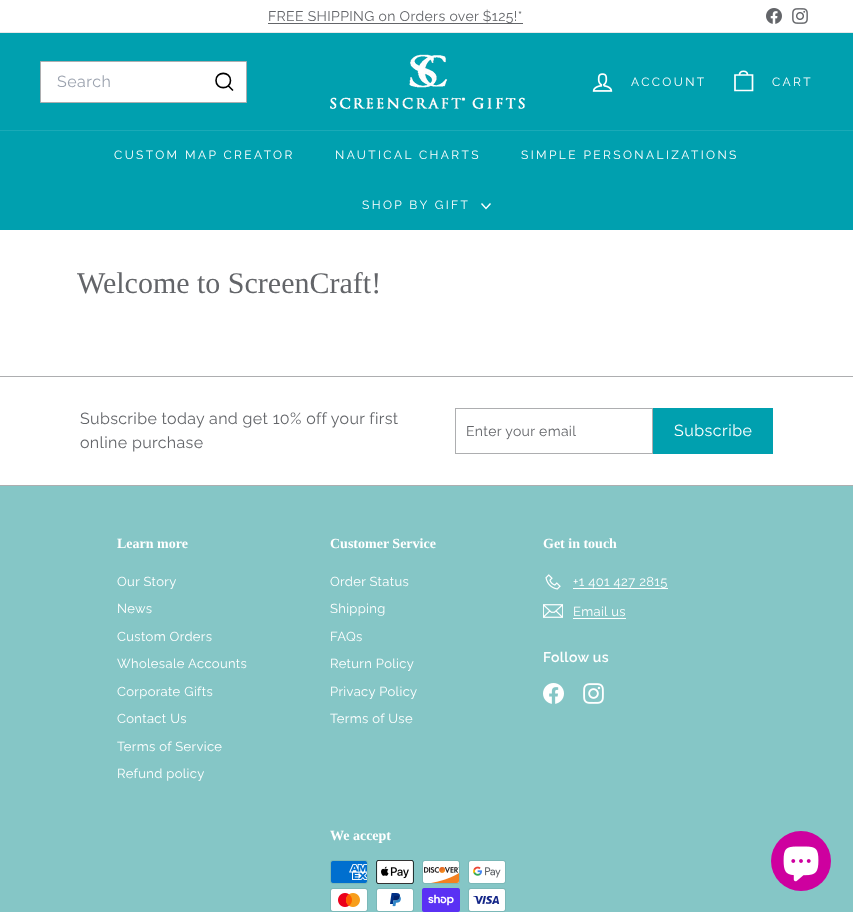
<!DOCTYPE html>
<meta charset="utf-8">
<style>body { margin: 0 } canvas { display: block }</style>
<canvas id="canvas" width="853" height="912"></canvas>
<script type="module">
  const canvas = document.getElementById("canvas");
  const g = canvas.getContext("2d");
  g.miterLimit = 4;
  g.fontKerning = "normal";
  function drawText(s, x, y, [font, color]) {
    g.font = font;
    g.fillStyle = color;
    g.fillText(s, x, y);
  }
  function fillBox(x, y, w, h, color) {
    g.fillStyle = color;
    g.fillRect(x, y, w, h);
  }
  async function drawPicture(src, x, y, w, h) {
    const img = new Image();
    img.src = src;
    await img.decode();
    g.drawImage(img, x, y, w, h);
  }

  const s1 = ["14px Raleway", "#636569"];
  const s2 = ["16px Raleway", "#9CA3AF"];
  const s3 = ["12px Raleway", "#FFFFFF"];
  const s4 = ["30px Liberation Serif", "#636569"];
  const s5 = ["16px Raleway", "#636569"];
  const s6 = ["16px Raleway", "#FFFFFF"];
  const s7 = ["bold 14px Liberation Serif", "#FFFFFF"];
  const s8 = ["13px Raleway", "#FFFFFF"];
  const s9 = ["600 14px Raleway", "#FFFFFF"];

  fillBox(0, 0, 853, 912, "#FFFFFF");
  fillBox(268, 23, 255, 1, "#636569");
  g.letterSpacing = "0.35px";
  drawText("FREE SHIPPING on Orders over $125!*", 268, 21, s1);
  await drawPicture("pic1.png", 766, 8, 16, 16);
  await drawPicture("pic2.png", 792, 8, 16, 16);
  fillBox(0, 32, 853, 1, "#E8E8E9");
  fillBox(0, 33, 853, 97, "#00A0AF");
  g.fillStyle = "#FFFFFF";
  g.beginPath();
  g.rect(40.5, 61.5, 206, 41);
  g.fill();
  g.strokeStyle = "#ADAEB0";
  g.stroke();
  g.letterSpacing = "0.5px";
  drawText("Search", 57, 87, s2);
  g.beginPath();
  g.moveTo(230.5, 80.5);
  g.bezierCurveTo(230.5, 90, 216, 90, 216, 80.5);
  g.bezierCurveTo(216, 71, 230.5, 71, 230.5, 80.5);
  g.moveTo(233, 90.5);
  g.lineTo(228.5, 86);
  g.strokeStyle = "#000000";
  g.lineWidth = 1.6;
  g.stroke();
  await drawPicture("pic3.png", 330, 54, 195, 56);
  await drawPicture("pic4.png", 592, 73, 21, 19);
  g.letterSpacing = "2.4px";
  drawText("ACCOUNT", 631, 86, s3);
  g.beginPath();
  g.moveTo(739.5, 75);
  g.bezierCurveTo(739.5, 70, 747.5, 70, 747.5, 75);
  g.moveTo(735, 75);
  g.lineTo(752.5, 75);
  g.lineTo(752.5, 90.5);
  g.lineTo(735, 90.5);
  g.closePath();
  g.strokeStyle = "#FFFFFF";
  g.lineWidth = 1.7;
  g.stroke();
  drawText("CART", 772, 86, s3);
  fillBox(0, 131, 853, 99, "#00A0AF");
  fillBox(0, 130, 853, 1, "#1AAAB7");
  drawText("CUSTOM MAP CREATOR", 114, 159, s3);
  drawText("NAUTICAL CHARTS", 335, 159, s3);
  drawText("SIMPLE PERSONALIZATIONS", 521, 159, s3);
  drawText("SHOP BY GIFT", 362, 209, s3);
  g.beginPath();
  g.moveTo(481.5, 203.5);
  g.lineTo(486, 208.5);
  g.lineTo(490.5, 203.5);
  g.lineWidth = 1.4;
  g.stroke();
  g.letterSpacing = "0px";
  drawText("Welcome to ScreenCraft!", 77, 293, s4);
  fillBox(0, 376, 853, 1, "#ADAEB0");
  g.letterSpacing = "0.35px";
  drawText("Subscribe today and get 10% off your first", 80, 424, s5);
  drawText("online purchase", 80, 448, s5);
  g.strokeStyle = "#ADAEB0";
  g.lineWidth = 1;
  g.strokeRect(455.5, 408.5, 197, 45);
  drawText("Enter your email", 466, 436, s1);
  fillBox(653, 408, 120, 46, "#00A0AF");
  g.letterSpacing = "0.5px";
  drawText("Subscribe", 674, 436, s6);
  fillBox(0, 486, 853, 426, "#85C6C6");
  fillBox(0, 485, 853, 1, "#ADAEB0");
  g.letterSpacing = "0px";
  drawText("Learn more", 117, 548, s7);
  g.letterSpacing = "0.35px";
  drawText("Our Story", 117, 586, s8);
  drawText("News", 117, 613, s8);
  drawText("Custom Orders", 117, 641, s8);
  drawText("Wholesale Accounts", 117, 668, s8);
  drawText("Corporate Gifts", 117, 696, s8);
  drawText("Contact Us", 117, 723, s8);
  drawText("Terms of Service", 117, 751, s8);
  drawText("Refund policy", 117, 778, s8);
  g.letterSpacing = "0px";
  drawText("Customer Service", 330, 548, s7);
  g.letterSpacing = "0.35px";
  drawText("Order Status", 330, 586, s8);
  drawText("Shipping", 330, 613, s8);
  drawText("FAQs", 330, 641, s8);
  drawText("Return Policy", 330, 668, s8);
  drawText("Privacy Policy", 330, 696, s8);
  drawText("Terms of Use", 330, 723, s8);
  g.letterSpacing = "0px";
  drawText("Get in touch", 543, 548, s7);
  await drawPicture("pic5.png", 545, 574, 16, 16);
  g.letterSpacing = "0.35px";
  drawText("+1 401 427 2815", 573, 586, s8);
  fillBox(573, 588, 95, 1, "#FFFFFF");
  await drawPicture("pic6.png", 543, 604, 20, 14);
  drawText("Email us", 573, 616, s8);
  fillBox(573, 618, 53, 1, "#FFFFFF");
  drawText("Follow us", 543, 662, s9);
  await drawPicture("pic7.png", 543, 683, 21, 21);
  await drawPicture("pic8.png", 583, 683, 21, 21);
  g.letterSpacing = "0px";
  drawText("We accept", 330, 840, s7);
  await drawPicture("pic9.png", 330, 860, 38, 24);
  await drawPicture("pic10.png", 376, 860, 38, 24);
  await drawPicture("pic11.png", 422, 860, 38, 24);
  await drawPicture("pic12.png", 468, 860, 38, 24);
  await drawPicture("pic13.png", 330, 888, 38, 24);
  await drawPicture("pic14.png", 376, 888, 38, 24);
  await drawPicture("pic15.png", 422, 888, 38, 24);
  await drawPicture("pic16.png", 468, 888, 38, 24);
  g.fillStyle = "#CE009F";
  g.beginPath();
  g.arc(801, 861, 30, 0, Math.PI * 2);
  g.fill();
  await drawPicture("pic17.png", 783, 846, 36, 36);
</script>
